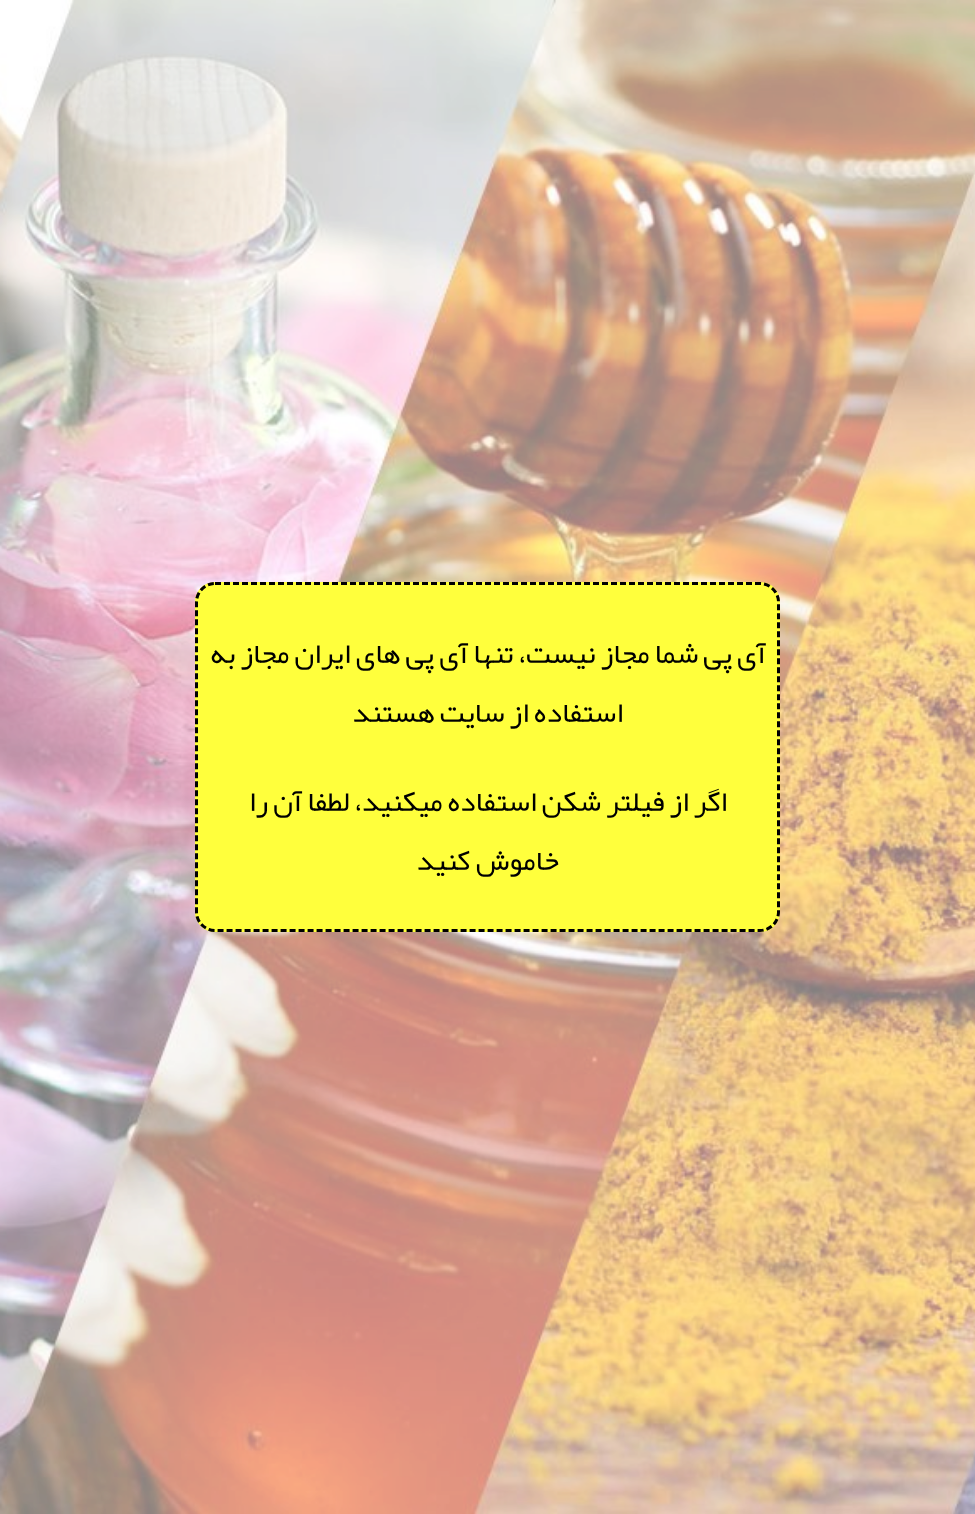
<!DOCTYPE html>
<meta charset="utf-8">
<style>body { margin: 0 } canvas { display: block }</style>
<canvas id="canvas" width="975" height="1514"></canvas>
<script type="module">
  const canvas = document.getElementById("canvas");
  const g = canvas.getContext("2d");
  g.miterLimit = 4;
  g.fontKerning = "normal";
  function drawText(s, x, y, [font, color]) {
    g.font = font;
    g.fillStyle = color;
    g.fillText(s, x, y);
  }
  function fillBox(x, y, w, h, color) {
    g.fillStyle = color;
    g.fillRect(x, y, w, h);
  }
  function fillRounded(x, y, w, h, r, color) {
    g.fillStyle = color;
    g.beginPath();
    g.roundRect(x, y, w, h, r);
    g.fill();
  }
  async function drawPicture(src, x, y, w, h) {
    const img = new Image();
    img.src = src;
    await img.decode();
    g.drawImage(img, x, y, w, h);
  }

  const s1 = ["29.3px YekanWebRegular", "#000000"];

  fillBox(0, 0, 975, 1514, "#FFFFFF");
  await drawPicture("pic1.png", 0, 0, 975, 1514);
  fillRounded(195, 582, 585, 350, 20, "#FFFF3C");
  g.beginPath();
  g.moveTo(215, 583.5);
  g.lineTo(760, 583.5);
  g.bezierCurveTo(770, 583.5, 778.5, 592, 778.5, 602);
  g.lineTo(778.5, 912);
  g.bezierCurveTo(778.5, 922, 770, 930.5, 760, 930.5);
  g.lineTo(215, 930.5);
  g.bezierCurveTo(205, 930.5, 196.5, 922, 196.5, 912);
  g.lineTo(196.5, 602);
  g.bezierCurveTo(196.5, 592, 205, 583.5, 215, 583.5);
  g.closePath();
  g.strokeStyle = "#000000";
  g.lineWidth = 3;
  g.setLineDash([6, 3]);
  g.stroke();
  g.direction = "rtl";
  drawText("آی پی شما مجاز نیست، تنها آی پی های ایران مجاز به", 766, 663, s1);
  drawText("استفاده از سایت هستند", 623, 722, s1);
  drawText("اگر از فیلتر شکن استفاده میکنید، لطفا آن را", 727, 811, s1);
  drawText("خاموش کنید", 559, 870, s1);
</script>
